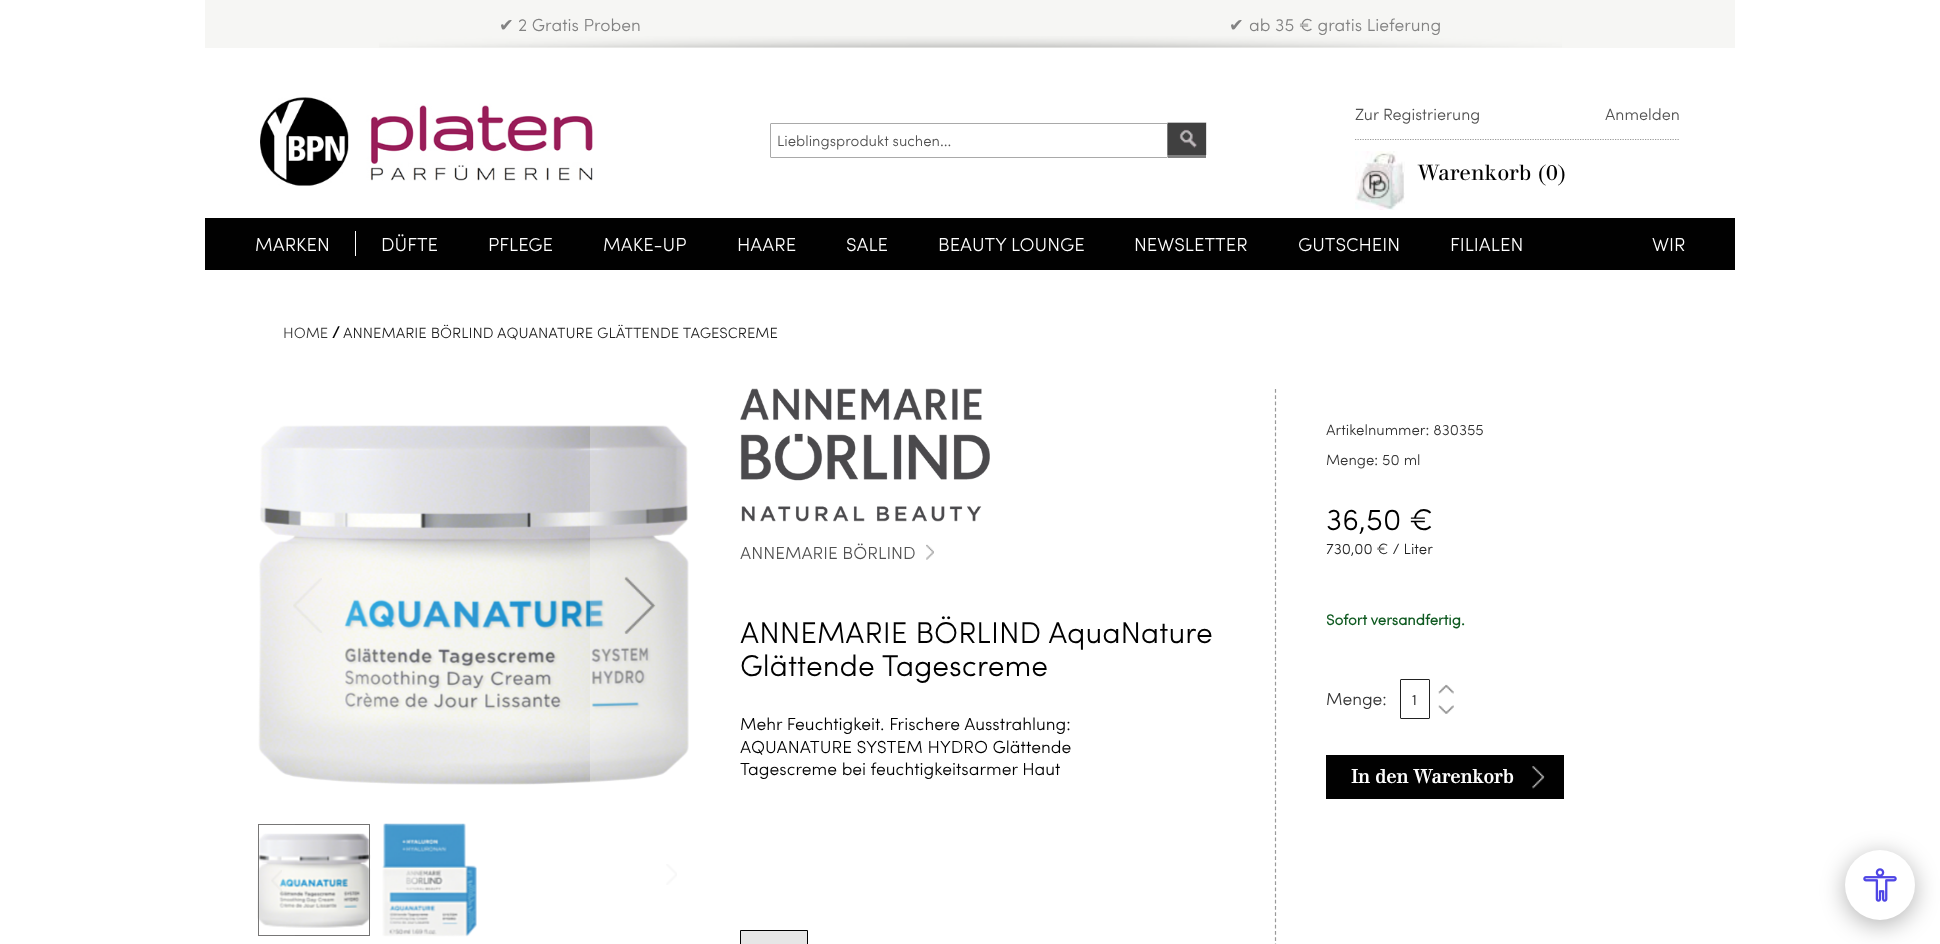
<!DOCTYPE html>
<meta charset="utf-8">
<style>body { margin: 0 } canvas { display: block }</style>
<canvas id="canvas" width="1940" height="944"></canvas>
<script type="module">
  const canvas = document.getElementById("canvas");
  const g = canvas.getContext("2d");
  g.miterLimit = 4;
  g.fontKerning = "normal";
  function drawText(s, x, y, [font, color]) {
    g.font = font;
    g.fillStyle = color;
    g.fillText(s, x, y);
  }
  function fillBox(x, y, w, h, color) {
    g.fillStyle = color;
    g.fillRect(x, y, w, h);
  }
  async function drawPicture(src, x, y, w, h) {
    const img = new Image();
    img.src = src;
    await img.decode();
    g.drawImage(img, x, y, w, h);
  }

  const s1 = ["17.5px DejaVu Sans", "#828282"];
  const s2 = ["17.5px Sofia", "#828282"];
  const s3 = ["15px Sofia", "#515151"];
  const s4 = ["16.25px Sofia", "#515151"];
  const s5 = ["21.25px 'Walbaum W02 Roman'", "#000000"];
  const s6 = ["18.75px Sofia", "#FFFFFF"];
  const s7 = ["15px Sofia", "#333333"];
  const s8 = ["bold 16.25px Sofia", "#000000"];
  const s9 = ["15px Sofia", "#222222"];
  const s10 = ["17.5px Sofia", "#515151"];
  const s11 = ["30px Sofia", "#000000"];
  const s12 = ["17.5px Sofia", "#000000"];
  const s13 = ["bold 15px Sofia", "#0F5A21"];
  const s14 = ["17.5px Sofia", "#333333"];
  const s15 = ["15px Sofia", "#000000"];
  const s16 = ["bold 18.75px 'Walbaum W02 Roman'", "#FFFFFF"];

  fillBox(0, 0, 1940, 944, "#FFFFFF");
  fillBox(205, 0, 1530, 48, "#F6F6F4");
  await drawPicture("pic1.png", 379, 36, 1183, 12);
  drawText("✔", 499, 31, s1);
  drawText("2 Gratis Proben", 518, 31, s2);
  drawText("✔", 1229, 31, s1);
  drawText("ab 35 € gratis Lieferung", 1249, 31, s2);
  await drawPicture("pic2.png", 260, 97, 333, 89);
  g.beginPath();
  g.roundRect(770.5, 123.5, 397, 34, 0.5);
  g.strokeStyle = "#A9A9A9";
  g.stroke();
  drawText("Lieblingsprodukt suchen...", 777, 146, s3);
  fillBox(1168, 123, 38, 35, "#808080");
  await drawPicture("pic3.png", 1167, 122, 40, 33);
  drawText("Zur Registrierung", 1355, 120, s4);
  drawText("Anmelden", 1605, 120, s4);
  g.beginPath();
  g.moveTo(1355, 139.5);
  g.lineTo(1680, 139.5);
  g.strokeStyle = "#999999";
  g.lineWidth = 1.2;
  g.setLineDash([1.25, 1.25]);
  g.stroke();
  await drawPicture("pic4.png", 1355, 151, 50, 59);
  drawText("Warenkorb (0)", 1418, 180, s5);
  fillBox(205, 218, 1530, 52, "#010101");
  drawText("MARKEN", 255, 251, s6);
  fillBox(355, 231, 1, 25, "#FFFFFF");
  drawText("DÜFTE", 381, 251, s6);
  drawText("PFLEGE", 488, 251, s6);
  drawText("MAKE-UP", 603, 251, s6);
  drawText("HAARE", 737, 251, s6);
  drawText("SALE", 846, 251, s6);
  drawText("BEAUTY LOUNGE", 938, 251, s6);
  drawText("NEWSLETTER", 1134, 251, s6);
  drawText("GUTSCHEIN", 1298, 251, s6);
  drawText("FILIALEN", 1450, 251, s6);
  drawText("WIR", 1652, 251, s6);
  drawText("HOME", 283, 338, s7);
  drawText("/", 332, 338, s8);
  drawText("ANNEMARIE BÖRLIND AQUANATURE GLÄTTENDE TAGESCREME", 343, 338, s9);
  await drawPicture("pic5.png", 258, 425, 431, 360);
  fillBox(265, 509, 93, 197, "rgba(255, 255, 255, 0.03)");
  await drawPicture("pic6.png", 293, 578, 29, 55);
  fillBox(590, 425, 99, 357, "rgba(255, 255, 255, 0.3)");
  await drawPicture("pic7.png", 624, 576, 32, 58);
  await drawPicture("pic9.png", 257, 833, 114, 95);
  g.strokeStyle = "#737272";
  g.lineWidth = 1;
  g.setLineDash([]);
  g.strokeRect(258.5, 824.5, 111, 111);
  await drawPicture("pic8.png", 382, 823, 95, 114);
  fillBox(258, 824, 37, 112, "rgba(255, 255, 255, 0.03)");
  await drawPicture("pic10.png", 271, 870, 11, 21);
  await drawPicture("pic11.png", 666, 864, 11, 21);
  await drawPicture("pic12.png", 740, 388, 250, 134);
  await drawPicture("pic13.png", 926, 544, 8, 16);
  drawText("ANNEMARIE BÖRLIND", 740, 559, s10);
  drawText("ANNEMARIE BÖRLIND AquaNature", 740, 643, s11);
  drawText("Glättende Tagescreme", 740, 676, s11);
  drawText("Mehr Feuchtigkeit. Frischere Ausstrahlung:", 740, 730, s12);
  drawText("AQUANATURE SYSTEM HYDRO Glättende", 740, 753, s12);
  drawText("Tagescreme bei feuchtigkeitsarmer Haut", 740, 775, s12);
  g.fillStyle = "#E6E6E6";
  g.beginPath();
  g.rect(740.5, 930.5, 67, 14);
  g.fill();
  g.strokeStyle = "#000000";
  g.stroke();
  g.beginPath();
  g.moveTo(1275.5, 389);
  g.lineTo(1275.5, 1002.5);
  g.strokeStyle = "#999999";
  g.lineWidth = 1.2;
  g.setLineDash([3.75, 2.48]);
  g.stroke();
  drawText("Artikelnummer: 830355", 1326, 435, s7);
  drawText("Menge: 50 ml", 1326, 465, s7);
  drawText("36,50 €", 1326, 530, s11);
  drawText("730,00 € / Liter", 1326, 554, s9);
  drawText("Sofort versandfertig.", 1326, 625, s13);
  drawText("Menge:", 1326, 705, s14);
  g.beginPath();
  g.roundRect(1400.5, 679.5, 29, 39, 0.5);
  g.strokeStyle = "#222222";
  g.lineWidth = 1;
  g.setLineDash([]);
  g.stroke();
  drawText("1", 1412, 705, s15);
  await drawPicture("pic14.png", 1438, 684, 16, 10);
  await drawPicture("pic15.png", 1438, 705, 16, 9);
  fillBox(1326, 755, 238, 44, "#010101");
  await drawPicture("pic16.png", 1532, 766, 13, 23);
  drawText("In den Warenkorb", 1351, 783, s16);
  g.fillStyle = "rgba(0, 0, 0, 0.3)";
  g.filter = "blur(12.5px)";
  g.beginPath();
  g.roundRect(1845, 855, 70, 70, 35);
  g.fill();
  g.filter = "none";
  g.fillStyle = "#FFFFFF";
  g.beginPath();
  g.arc(1880, 885, 35, 0, Math.PI * 2);
  g.fill();
  await drawPicture("pic17.png", 1863, 868, 34, 34);
</script>
